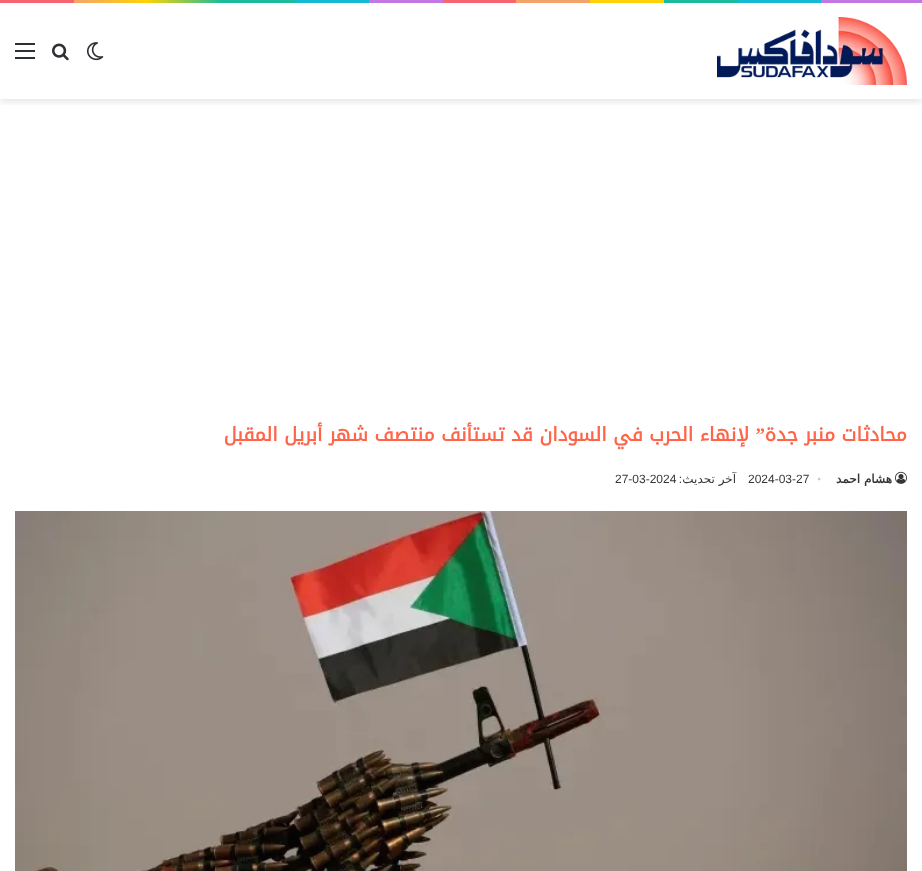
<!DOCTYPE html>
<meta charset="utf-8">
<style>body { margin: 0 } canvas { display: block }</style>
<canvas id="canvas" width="922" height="871"></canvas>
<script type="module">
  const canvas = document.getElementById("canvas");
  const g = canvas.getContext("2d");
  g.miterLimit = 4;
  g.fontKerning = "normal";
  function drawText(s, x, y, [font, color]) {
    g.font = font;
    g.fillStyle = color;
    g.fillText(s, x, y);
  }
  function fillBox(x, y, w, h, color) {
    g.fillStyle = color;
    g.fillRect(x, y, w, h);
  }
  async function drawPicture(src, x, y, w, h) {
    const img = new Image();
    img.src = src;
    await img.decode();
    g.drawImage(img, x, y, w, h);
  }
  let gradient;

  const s1 = ["bold 19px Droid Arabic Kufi", "#FF6549"];
  const s2 = ["bold 19px Liberation Serif", "#FF6549"];
  const s3 = ["bold 12px DejaVu Sans", "#353535"];
  const s4 = ["12px Liberation Serif", "#CDCDCD"];
  const s5 = ["12px Liberation Sans", "#353535"];
  const s6 = ["12px DejaVu Sans", "#353535"];

  fillBox(0, 0, 922, 871, "#FFFFFF");
  gradient = g.createLinearGradient(0, 1.5, 922, 1.5);
  gradient.addColorStop(0, "#F76570");
  gradient.addColorStop(0.08, "#F76570");
  gradient.addColorStop(0.08, "#F3A46B");
  gradient.addColorStop(0.16, "#FFD205");
  gradient.addColorStop(0.24, "#1BBC9B");
  gradient.addColorStop(0.32, "#1BBC9B");
  gradient.addColorStop(0.32, "#14B9D5");
  gradient.addColorStop(0.4, "#14B9D5");
  gradient.addColorStop(0.4, "#C377E4");
  gradient.addColorStop(0.48, "#C377E4");
  gradient.addColorStop(0.48, "#F76570");
  gradient.addColorStop(0.56, "#F76570");
  gradient.addColorStop(0.56, "#F3A46B");
  gradient.addColorStop(0.64, "#F3A46B");
  gradient.addColorStop(0.64, "#FFD205");
  gradient.addColorStop(0.72, "#FFD205");
  gradient.addColorStop(0.72, "#1BBC9B");
  gradient.addColorStop(0.8, "#1BBC9B");
  gradient.addColorStop(0.8, "#14B9D5");
  gradient.addColorStop(0.89, "#14B9D5");
  gradient.addColorStop(0.89, "#C377E4");
  gradient.addColorStop(1, "#C377E4");
  g.fillStyle = gradient;
  g.fillRect(0, 0, 922, 3);
  g.save();
  g.beginPath();
  g.rect(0, 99, 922, 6);
  g.clip();
  g.fillStyle = "rgba(0, 0, 0, 0.1)";
  g.filter = "blur(3.5px)";
  g.beginPath();
  g.rect(0, 6, 922, 96);
  g.fill();
  g.filter = "none";
  g.restore();
  await drawPicture("pic1.png", 717, 17, 190, 68);
  await drawPicture("pic2.png", 87, 42, 17, 19);
  await drawPicture("pic3.png", 52, 43, 17, 18);
  fillBox(15, 50, 20, 2, "#2C2F34");
  fillBox(15, 43, 20, 2, "#2C2F34");
  fillBox(15, 57, 20, 2, "#2C2F34");
  g.direction = "rtl";
  drawText("محادثات منبر جدة", 907, 441, s1);
  drawText("”", 765, 441, s2);
  drawText("لإنهاء الحرب في السودان قد تستأنف منتصف شهر أبريل المقبل", 749, 441, s1);
  await drawPicture("pic4.png", 895, 471, 12, 13);
  drawText("هشام احمد", 892, 483, s3);
  g.direction = "ltr";
  drawText("•", 817, 483, s4);
  drawText("2024-03-27", 748, 483, s5);
  g.direction = "rtl";
  drawText("آخر تحديث", 736, 483, s6);
  drawText(":", 682, 483, s5);
  g.direction = "ltr";
  drawText("27-03-2024", 615, 483, s5);
  await drawPicture("pic5.png", 15, 511, 892, 360);
</script>
